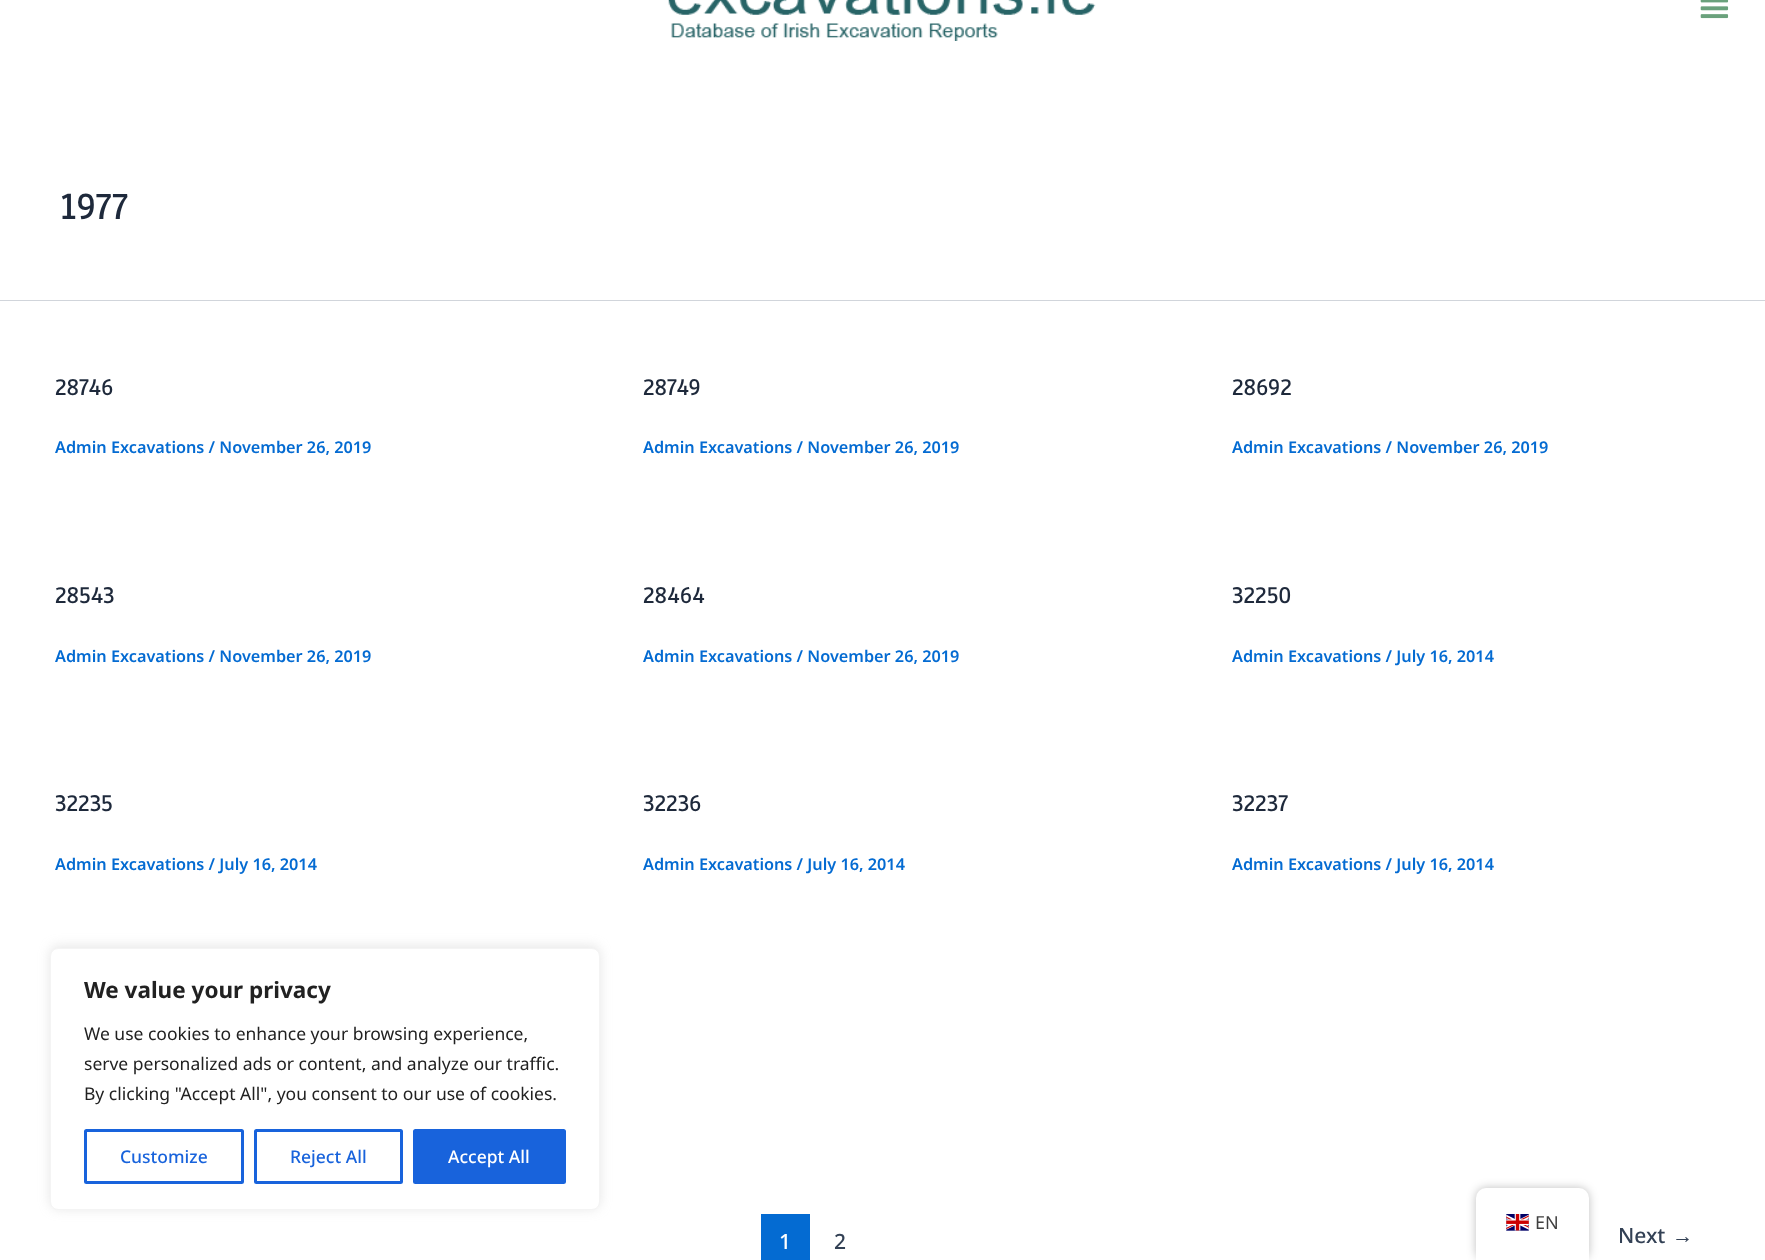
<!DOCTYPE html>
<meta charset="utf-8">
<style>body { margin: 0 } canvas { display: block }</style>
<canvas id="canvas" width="1765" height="1260"></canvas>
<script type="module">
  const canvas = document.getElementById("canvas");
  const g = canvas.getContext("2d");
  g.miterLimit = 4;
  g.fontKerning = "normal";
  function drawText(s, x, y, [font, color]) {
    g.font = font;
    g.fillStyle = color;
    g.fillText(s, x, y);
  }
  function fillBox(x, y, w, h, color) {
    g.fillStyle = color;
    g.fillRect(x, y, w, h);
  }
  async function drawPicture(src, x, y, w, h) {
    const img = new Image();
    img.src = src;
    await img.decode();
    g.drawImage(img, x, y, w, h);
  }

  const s1 = ["600 40px Anaheim", "#1E293B"];
  const s2 = ["600 25px Anaheim", "#1E293B"];
  const s3 = ["600 16.25px Noto Sans", "#046BD2"];
  const s4 = ["500 21px Noto Sans", "#FFFFFF"];
  const s5 = ["500 21px Noto Sans", "#334155"];
  const s6 = ["21px Liberation Sans", "#334155"];
  const s7 = ["bold 22.5px Noto Sans", "#212121"];
  const s8 = ["17.5px Noto Sans", "#212121"];
  const s9 = ["500 17.5px Noto Sans", "#1863DC"];
  const s10 = ["500 17.5px Noto Sans", "#FFFFFF"];
  const s11 = ["18px Noto Sans", "#404040"];

  fillBox(0, 0, 1765, 1260, "#FFFFFF");
  await drawPicture("pic1.png", 668, 0, 428, 41);
  await drawPicture("pic2.png", 1700, 0, 29, 19);
  fillBox(0, 300, 1765, 1, "#D1D5DB");
  drawText("1977", 60, 219, s1);
  drawText("28746", 55, 395, s2);
  drawText("Admin Excavations / November 26, 2019", 55, 453, s3);
  drawText("28749", 643, 395, s2);
  drawText("Admin Excavations / November 26, 2019", 643, 453, s3);
  drawText("28692", 1232, 395, s2);
  drawText("Admin Excavations / November 26, 2019", 1232, 453, s3);
  drawText("28543", 55, 603, s2);
  drawText("Admin Excavations / November 26, 2019", 55, 662, s3);
  drawText("28464", 643, 603, s2);
  drawText("Admin Excavations / November 26, 2019", 643, 662, s3);
  drawText("32250", 1232, 603, s2);
  drawText("Admin Excavations / July 16, 2014", 1232, 662, s3);
  drawText("32235", 55, 811, s2);
  drawText("Admin Excavations / July 16, 2014", 55, 870, s3);
  drawText("32236", 643, 811, s2);
  drawText("Admin Excavations / July 16, 2014", 643, 870, s3);
  drawText("32237", 1232, 811, s2);
  drawText("Admin Excavations / July 16, 2014", 1232, 870, s3);
  fillBox(761, 1214, 49, 46, "#046BD2");
  drawText("1", 779, 1249, s4);
  drawText("2", 834, 1249, s5);
  drawText("Next", 1618, 1243, s5);
  drawText("→", 1672, 1243, s6);
  g.fillStyle = "rgba(172, 171, 171, 0.3)";
  g.filter = "blur(6px)";
  g.beginPath();
  g.roundRect(50, 946, 550, 263, 8);
  g.fill();
  g.filter = "none";
  g.fillStyle = "#FFFFFF";
  g.beginPath();
  g.roundRect(50.5, 948.5, 549, 261, 7.5);
  g.fill();
  g.strokeStyle = "#F4F4F4";
  g.stroke();
  drawText("We value your privacy", 84, 998, s7);
  drawText("We use cookies to enhance your browsing experience,", 84, 1040, s8);
  drawText("serve personalized ads or content, and analyze our traffic.", 84, 1070, s8);
  drawText("By clicking \"Accept All\", you consent to our use of cookies.", 84, 1100, s8);
  g.beginPath();
  g.roundRect(85.5, 1130.5, 157, 52, 1);
  g.strokeStyle = "#1863DC";
  g.lineWidth = 3;
  g.stroke();
  drawText("Customize", 120, 1163, s9);
  g.beginPath();
  g.roundRect(255.5, 1130.5, 146, 52, 1);
  g.stroke();
  drawText("Reject All", 290, 1163, s9);
  g.beginPath();
  g.roundRect(414.5, 1130.5, 150, 52, 1);
  g.fill();
  g.stroke();
  drawText("Accept All", 448, 1163, s10);
  g.fillStyle = "rgba(0, 0, 0, 0.25)";
  g.filter = "blur(5px)";
  g.beginPath();
  g.roundRect(1476, 1188, 113, 72, 10);
  g.fill();
  g.filter = "none";
  g.fillStyle = "#FFFFFF";
  g.beginPath();
  g.roundRect(1476, 1188, 113, 72, [10, 10, 0, 0]);
  g.fill();
  await drawPicture("pic3.png", 1506, 1214, 23, 17);
  drawText("EN", 1535, 1229, s11);
</script>
